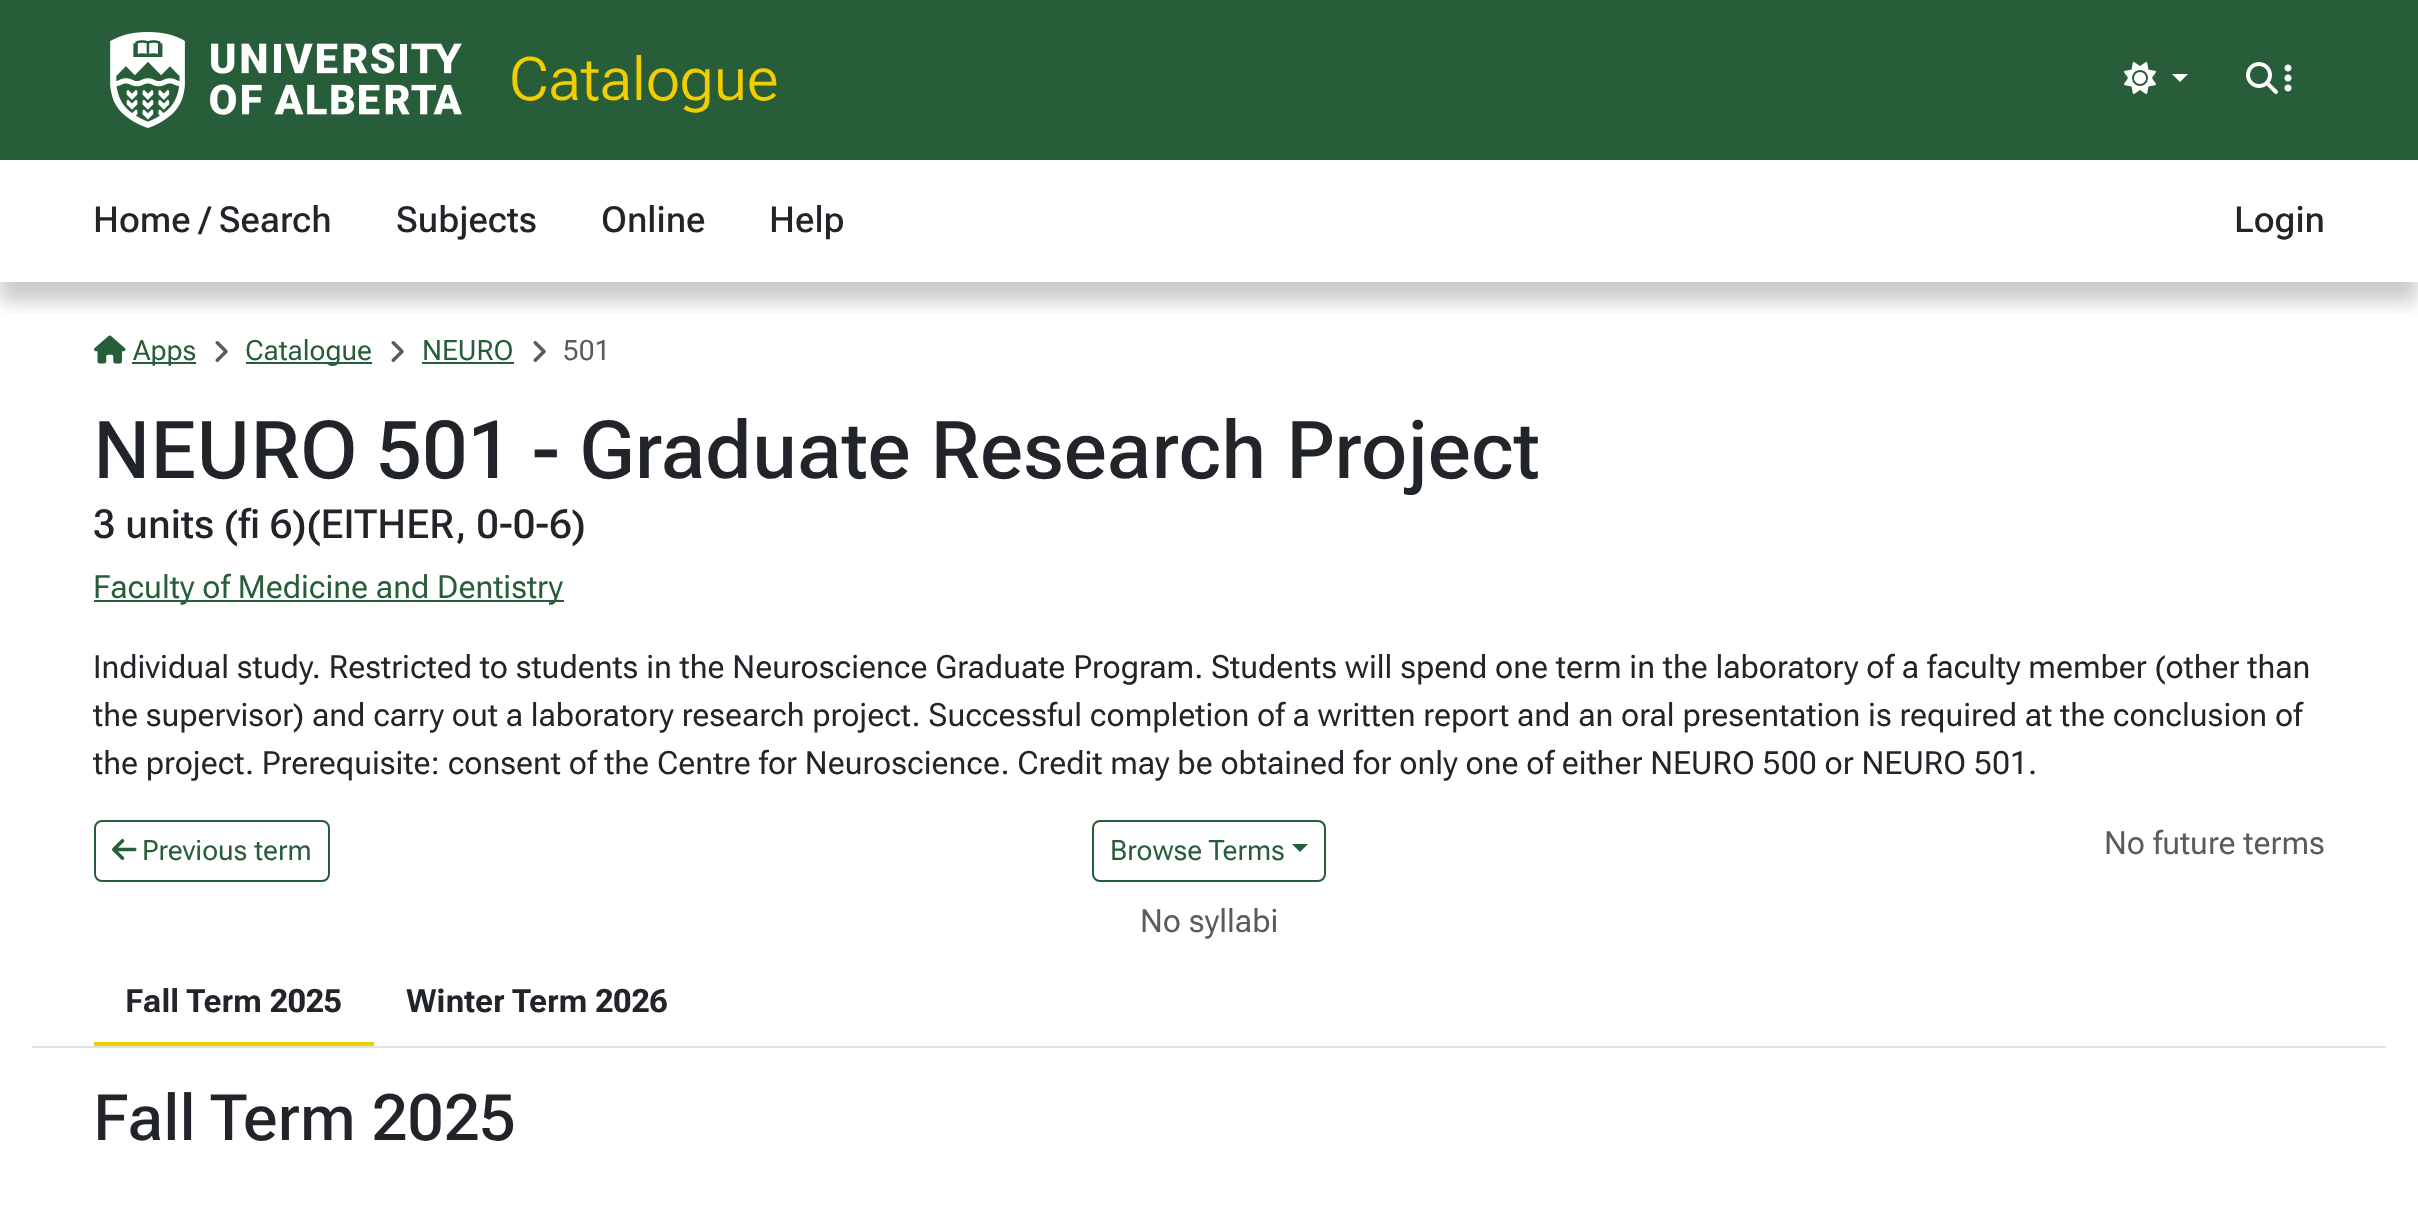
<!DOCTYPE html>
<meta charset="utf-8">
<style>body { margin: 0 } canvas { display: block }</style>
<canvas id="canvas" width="2418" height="1206"></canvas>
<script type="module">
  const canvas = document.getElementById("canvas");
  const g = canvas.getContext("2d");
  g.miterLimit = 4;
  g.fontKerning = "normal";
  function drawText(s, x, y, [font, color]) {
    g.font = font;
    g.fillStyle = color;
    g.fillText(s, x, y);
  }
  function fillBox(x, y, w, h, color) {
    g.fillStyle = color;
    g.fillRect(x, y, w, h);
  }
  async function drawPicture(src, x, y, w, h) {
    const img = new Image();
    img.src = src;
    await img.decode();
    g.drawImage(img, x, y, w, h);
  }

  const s1 = ["300 60px Roboto Flex", "#F2CD00"];
  const s2 = ["500 36px Roboto Flex", "#212529"];
  const s3 = ["28px Roboto Flex", "#275D38"];
  const s4 = ["28px Roboto Flex", "#595C5F"];
  const s5 = ["500 80px Roboto Flex", "#212529"];
  const s6 = ["500 40px Roboto Flex", "#212529"];
  const s7 = ["32px Roboto Flex", "#275D38"];
  const s8 = ["32px Roboto Flex", "#212529"];
  const s9 = ["32px Roboto Flex", "#595C5F"];
  const s10 = ["bold 32px Roboto Flex", "#212529"];
  const s11 = ["500 64px Roboto Flex", "#212529"];

  fillBox(0, 0, 2418, 1206, "#FFFFFF");
  fillBox(0, 0, 2418, 160, "#275D38");
  await drawPicture("pic1.png", 110, 32, 352, 96);
  drawText("Catalogue", 509, 100, s1);
  await drawPicture("pic2.png", 2124, 62, 32, 32);
  g.fillStyle = "#FFFFFF";
  g.beginPath();
  g.moveTo(2172, 74);
  g.lineTo(2188, 74);
  g.lineTo(2180, 82);
  g.closePath();
  g.fill();
  await drawPicture("pic3.png", 2246, 62, 32, 32);
  await drawPicture("pic4.png", 2284, 64, 8, 28);
  g.save();
  g.beginPath();
  g.rect(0, 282, 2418, 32);
  g.clip();
  g.fillStyle = "rgba(0, 0, 0, 0.2)";
  g.filter = "blur(9px)";
  g.beginPath();
  g.rect(0, 180, 2418, 122);
  g.fill();
  g.filter = "none";
  g.restore();
  drawText("Home / Search", 93, 232, s2);
  drawText("Subjects", 396, 232, s2);
  drawText("Online", 601, 232, s2);
  drawText("Help", 769, 232, s2);
  drawText("Login", 2234, 232, s2);
  fillBox(32, 1046, 2354, 2, "#DEE2E6");
  await drawPicture("pic5.png", 94, 335, 32, 29);
  fillBox(132, 362, 64, 2, "#275D38");
  drawText("Apps", 133, 360, s3);
  await drawPicture("pic6.png", 215, 341, 13, 21);
  fillBox(246, 362, 126, 2, "#275D38");
  drawText("Catalogue", 245, 360, s3);
  await drawPicture("pic6.png", 391, 341, 13, 21);
  drawText("NEURO", 422, 360, s3);
  fillBox(422, 362, 92, 2, "#275D38");
  await drawPicture("pic6.png", 533, 341, 13, 21);
  drawText("501", 563, 360, s4);
  drawText("NEURO 501 - Graduate Research Project", 93, 478, s5);
  drawText("3 units (fi 6)(EITHER, 0-0-6)", 93, 538, s6);
  fillBox(94, 600, 470, 2, "#275D38");
  drawText("Faculty of Medicine and Dentistry", 93, 598, s7);
  drawText("Individual study. Restricted to students in the Neuroscience Graduate Program. Students will spend one term in the laboratory of a faculty member (other than", 93, 678, s8);
  drawText("the supervisor) and carry out a laboratory research project. Successful completion of a written report and an oral presentation is required at the conclusion of", 93, 726, s8);
  drawText("the project. Prerequisite: consent of the Centre for Neuroscience. Credit may be obtained for only one of either NEURO 500 or NEURO 501.", 93, 774, s8);
  g.beginPath();
  g.roundRect(95, 821, 234, 60, 7);
  g.strokeStyle = "#275D38";
  g.lineWidth = 2;
  g.stroke();
  await drawPicture("pic7.png", 112, 839, 25, 21);
  drawText("Previous term", 142, 860, s3);
  g.beginPath();
  g.roundRect(1093, 821, 232, 60, 7);
  g.stroke();
  drawText("Browse Terms", 1110, 860, s3);
  g.beginPath();
  g.moveTo(1292, 844);
  g.lineTo(1308, 844);
  g.lineTo(1300, 852);
  g.closePath();
  g.fill();
  drawText("No future terms", 2104, 854, s9);
  drawText("No syllabi", 1140, 932, s9);
  fillBox(94, 1042, 280, 4, "#F2CD00");
  drawText("Fall Term 2025", 125, 1012, s10);
  drawText("Winter Term 2026", 406, 1012, s10);
  drawText("Fall Term 2025", 93, 1140, s11);
</script>
